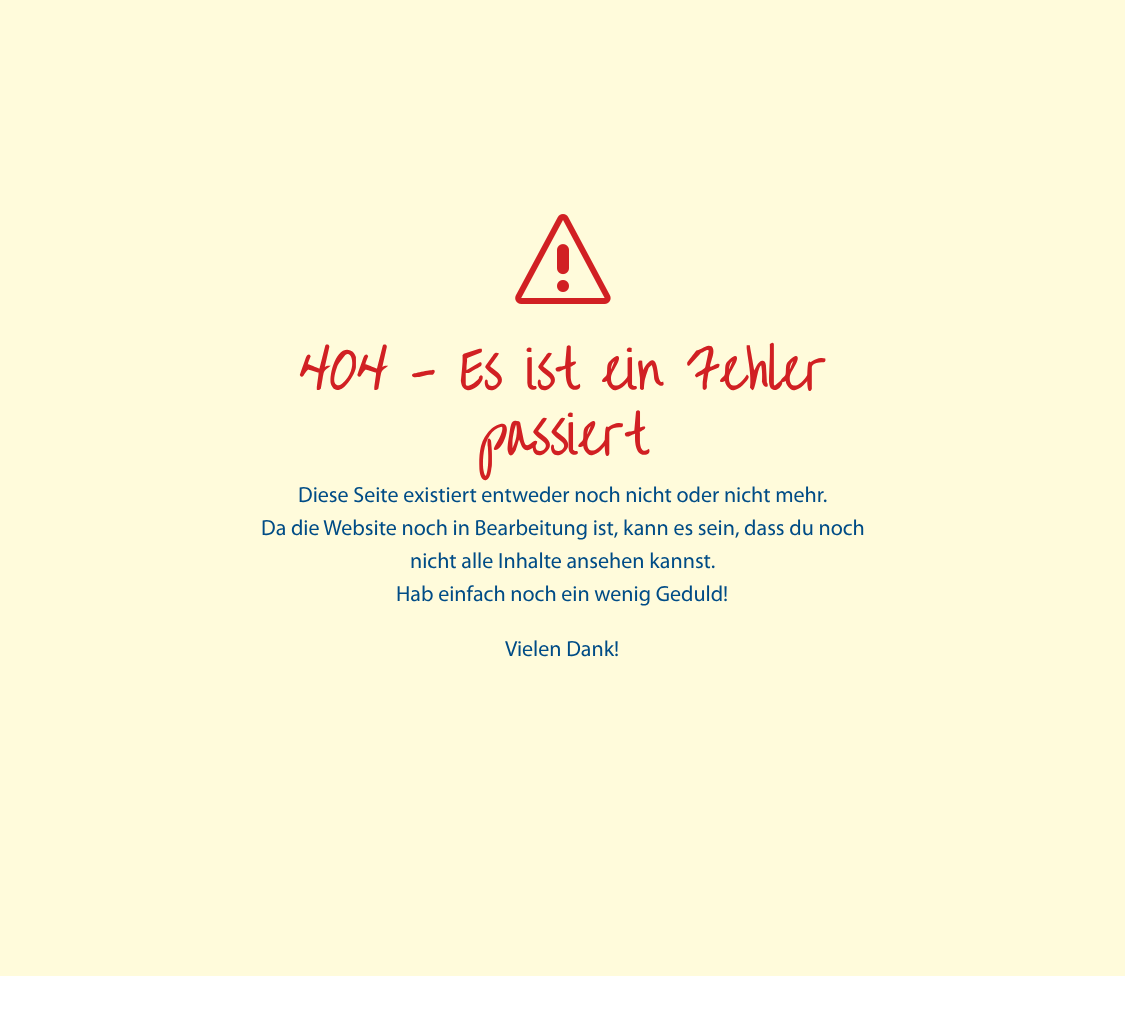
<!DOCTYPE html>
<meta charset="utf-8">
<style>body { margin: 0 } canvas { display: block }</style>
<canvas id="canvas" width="1125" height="1023"></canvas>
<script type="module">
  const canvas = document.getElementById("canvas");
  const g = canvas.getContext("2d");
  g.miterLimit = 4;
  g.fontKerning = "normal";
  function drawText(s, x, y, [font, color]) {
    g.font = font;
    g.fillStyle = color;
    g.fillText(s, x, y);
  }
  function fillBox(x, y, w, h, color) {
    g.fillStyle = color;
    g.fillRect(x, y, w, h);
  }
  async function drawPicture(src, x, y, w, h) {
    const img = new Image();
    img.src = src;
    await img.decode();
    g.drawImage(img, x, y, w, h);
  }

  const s1 = ["bold 50px Over the Rainbow", "#D12023"];
  const s2 = ["22px Myriad", "#004C86"];

  fillBox(0, 0, 1125, 1023, "#FFFFFF");
  fillBox(0, 0, 1125, 976, "#FFFBDB");
  await drawPicture("pic1.png", 515, 214, 96, 90);
  drawText("404 - Es ist ein Fehler", 299, 390, s1);
  drawText("passiert", 479, 455, s1);
  drawText("Diese Seite existiert entweder noch nicht oder nicht mehr.", 298, 502, s2);
  drawText("Da die Website noch in Bearbeitung ist, kann es sein, dass du noch", 261, 535, s2);
  drawText("nicht alle Inhalte ansehen kannst.", 410, 568, s2);
  drawText("Hab einfach noch ein wenig Geduld!", 396, 601, s2);
  drawText("Vielen Dank!", 505, 656, s2);
</script>
